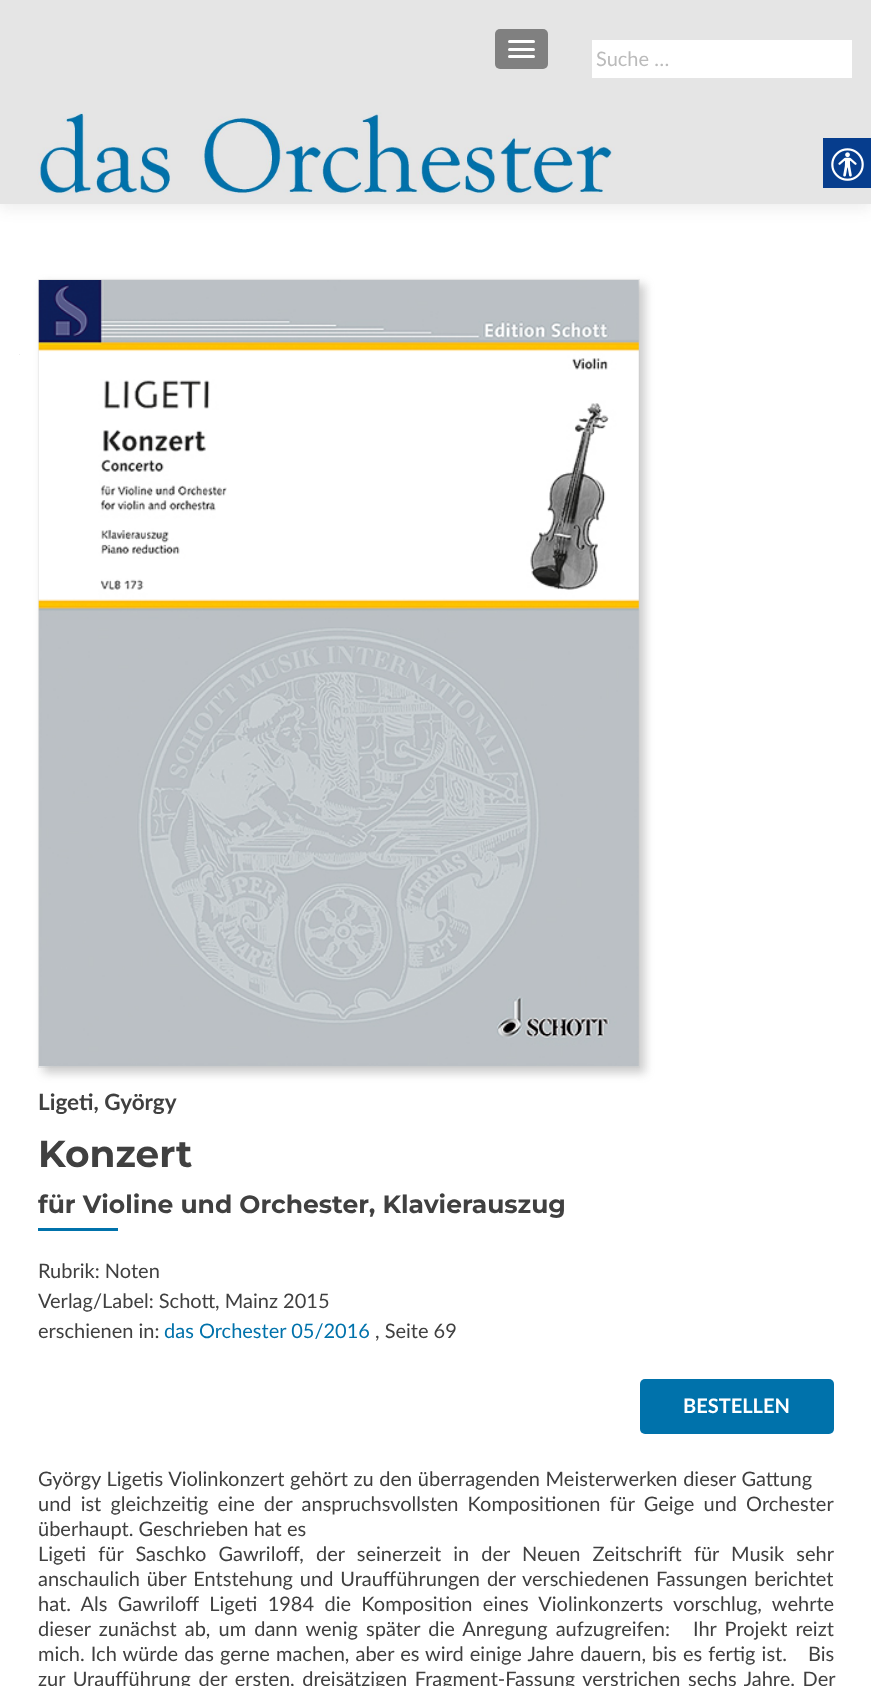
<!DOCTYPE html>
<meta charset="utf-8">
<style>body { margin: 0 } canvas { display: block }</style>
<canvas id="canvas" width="871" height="1686"></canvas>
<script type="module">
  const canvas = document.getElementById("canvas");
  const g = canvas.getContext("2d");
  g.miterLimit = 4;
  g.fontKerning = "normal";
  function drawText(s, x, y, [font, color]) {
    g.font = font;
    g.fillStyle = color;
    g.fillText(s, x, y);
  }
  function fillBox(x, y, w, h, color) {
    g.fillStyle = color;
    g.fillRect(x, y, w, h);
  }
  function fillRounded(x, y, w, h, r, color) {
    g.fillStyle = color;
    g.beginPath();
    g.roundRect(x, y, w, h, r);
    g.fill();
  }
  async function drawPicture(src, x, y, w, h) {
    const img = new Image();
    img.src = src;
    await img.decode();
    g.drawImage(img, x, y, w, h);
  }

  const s1 = ["20px Lato", "#BBBBBB"];
  const s2 = ["bold 22.5px Lato", "#404040"];
  const s3 = ["bold 37.5px Montserrat", "#404040"];
  const s4 = ["bold 25px Montserrat", "#404040"];
  const s5 = ["20px Lato", "#404040"];
  const s6 = ["20px Lato", "#0072AB"];
  const s7 = ["bold 20px Lato", "#FFFFFF"];

  fillBox(0, 0, 871, 1686, "#FFFFFF");
  g.fillStyle = "rgba(50, 50, 50, 0.08)";
  g.filter = "blur(7px)";
  g.beginPath();
  g.rect(0, 6, 871, 204);
  g.fill();
  g.filter = "none";
  fillBox(0, 0, 871, 204, "#E5E5E5");
  fillRounded(495, 29, 53, 40, 5, "#808080");
  fillRounded(508, 40, 27, 3, 1.5, "#FFFFFF");
  fillRounded(508, 48, 27, 3, 1.5, "#FFFFFF");
  fillRounded(508, 55, 27, 3, 1.5, "#FFFFFF");
  await drawPicture("pic1.png", 37, 112, 578, 83);
  fillBox(592, 40, 260, 38, "#FFFFFF");
  drawText("Suche …", 596, 66, s1);
  fillBox(19, 354, 1, 1, "#EDEDED");
  g.fillStyle = "rgba(100, 100, 100, 0.33)";
  g.filter = "blur(5px)";
  g.beginPath();
  g.rect(43, 284, 602, 789);
  g.fill();
  g.filter = "none";
  g.strokeStyle = "rgba(200, 200, 200, 0.33)";
  g.strokeRect(38.5, 279.5, 601, 788);
  await drawPicture("pic2.png", 38, 280, 601, 787);
  drawText("Ligeti, György", 38, 1110, s2);
  drawText("Konzert", 38, 1167, s3);
  g.save();
  g.beginPath();
  g.rect(38, 1088, 796, 358);
  g.clip();
  drawText("für Violine und Orchester, Klavierauszug", 38, 1213, s4);
  g.restore();
  fillBox(38, 1228, 80, 3, "#0072AB");
  drawText("Rubrik: Noten", 38, 1278, s5);
  drawText("Verlag/Label: Schott, Mainz 2015", 38, 1308, s5);
  drawText("erschienen in:", 38, 1338, s5);
  drawText("das Orchester 05/2016", 164, 1338, s6);
  drawText(", Seite 69", 375, 1338, s5);
  fillRounded(640, 1379, 194, 55, 5, "#0072AB");
  drawText("BESTELLEN", 683, 1413, s7);
  g.wordSpacing = "0.5px";
  drawText("György Ligetis Violinkonzert gehört zu den überragenden Meisterwerken dieser Gattung", 38, 1486, s5);
  g.wordSpacing = "4px";
  drawText("und ist gleichzeitig eine der anspruchsvollsten Kompositionen für Geige und Orchester", 38, 1511, s5);
  g.wordSpacing = "0px";
  drawText("überhaupt. Geschrieben hat es", 38, 1536, s5);
  g.wordSpacing = "7px";
  drawText("Ligeti für Saschko Gawriloff, der seinerzeit in der Neuen Zeitschrift für Musik sehr", 38, 1561, s5);
  g.wordSpacing = "1.75px";
  drawText("anschaulich über Entstehung und Uraufführungen der verschiedenen Fassungen berichtet", 38, 1586, s5);
  g.wordSpacing = "5.25px";
  drawText("hat. Als Gawriloff Ligeti 1984 die Komposition eines Violinkonzerts vorschlug, wehrte", 38, 1611, s5);
  g.wordSpacing = "3px";
  drawText("dieser zunächst ab, um dann wenig später die Anregung aufzugreifen:", 38, 1636, s5);
  drawText("Ihr Projekt reizt", 693, 1636, s5);
  g.wordSpacing = "1px";
  drawText("mich. Ich würde das gerne machen, aber es wird einige Jahre dauern, bis es fertig ist.", 38, 1661, s5);
  g.wordSpacing = "0px";
  drawText("Bis", 808, 1661, s5);
  g.wordSpacing = "2.5px";
  drawText("zur Uraufführung der ersten, dreisätzigen Fragment-Fassung verstrichen sechs Jahre. Der", 38, 1686, s5);
  fillBox(823, 138, 48, 50, "#063D8D");
  await drawPicture("pic3.png", 831, 148, 33, 33);
</script>
